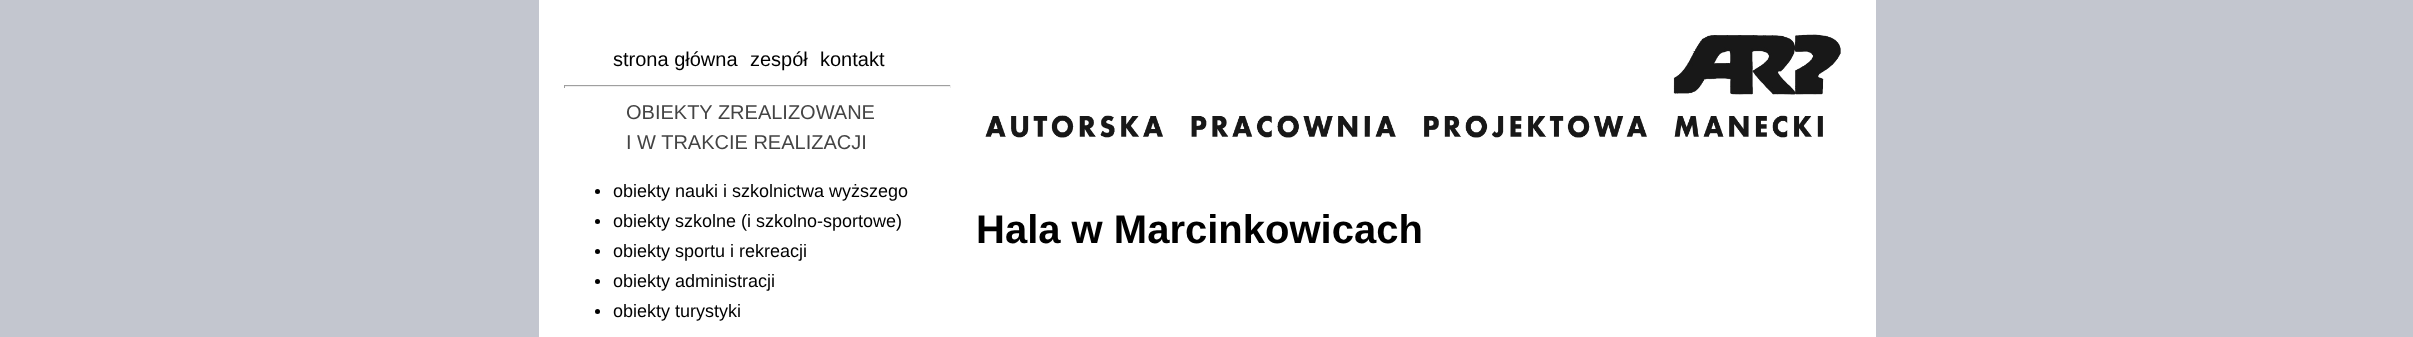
<!DOCTYPE html>
<meta charset="utf-8">
<style>body { margin: 0 } canvas { display: block }</style>
<canvas id="canvas" width="2413" height="337"></canvas>
<script type="module">
  const canvas = document.getElementById("canvas");
  const g = canvas.getContext("2d");
  g.miterLimit = 4;
  g.fontKerning = "normal";
  function drawText(s, x, y, [font, color]) {
    g.font = font;
    g.fillStyle = color;
    g.fillText(s, x, y);
  }
  function fillBox(x, y, w, h, color) {
    g.fillStyle = color;
    g.fillRect(x, y, w, h);
  }
  async function drawPicture(src, x, y, w, h) {
    const img = new Image();
    img.src = src;
    await img.decode();
    g.drawImage(img, x, y, w, h);
  }

  const s1 = ["20px Liberation Sans", "#000000"];
  const s2 = ["20px Liberation Sans", "#444444"];
  const s3 = ["18px Liberation Sans", "#000000"];
  const s4 = ["bold 40px Liberation Sans", "#000000"];

  fillBox(0, 0, 2413, 337, "#C3C6CF");
  fillBox(539, 0, 1337, 337, "#FFFFFF");
  drawText("strona główna", 613, 66, s1);
  drawText("zespół", 750, 66, s1);
  drawText("kontakt", 820, 66, s1);
  fillBox(564, 85, 387, 1, "#9F9F9F");
  fillBox(950, 85, 1, 3, "#EEEEEE");
  fillBox(564, 86, 387, 1, "#EEEEEE");
  fillBox(564, 85, 1, 3, "#9F9F9F");
  drawText("OBIEKTY ZREALIZOWANE", 626, 119, s2);
  drawText("I W TRAKCIE REALIZACJI", 626, 149, s2);
  g.fillStyle = "#000000";
  g.beginPath();
  g.arc(597.5, 191.5, 2.5, 0, Math.PI * 2);
  g.fill();
  drawText("obiekty nauki i szkolnictwa wyższego", 613, 197, s3);
  g.beginPath();
  g.arc(597.5, 221.5, 2.5, 0, Math.PI * 2);
  g.fill();
  drawText("obiekty szkolne (i szkolno-sportowe)", 613, 227, s3);
  g.beginPath();
  g.arc(597.5, 251.5, 2.5, 0, Math.PI * 2);
  g.fill();
  drawText("obiekty sportu i rekreacji", 613, 257, s3);
  g.beginPath();
  g.arc(597.5, 281.5, 2.5, 0, Math.PI * 2);
  g.fill();
  drawText("obiekty administracji", 613, 287, s3);
  g.beginPath();
  g.arc(597.5, 311.5, 2.5, 0, Math.PI * 2);
  g.fill();
  drawText("obiekty turystyki", 613, 317, s3);
  await drawPicture("pic1.png", 985, 34, 856, 104);
  drawText("Hala w Marcinkowicach", 976, 243, s4);
</script>
